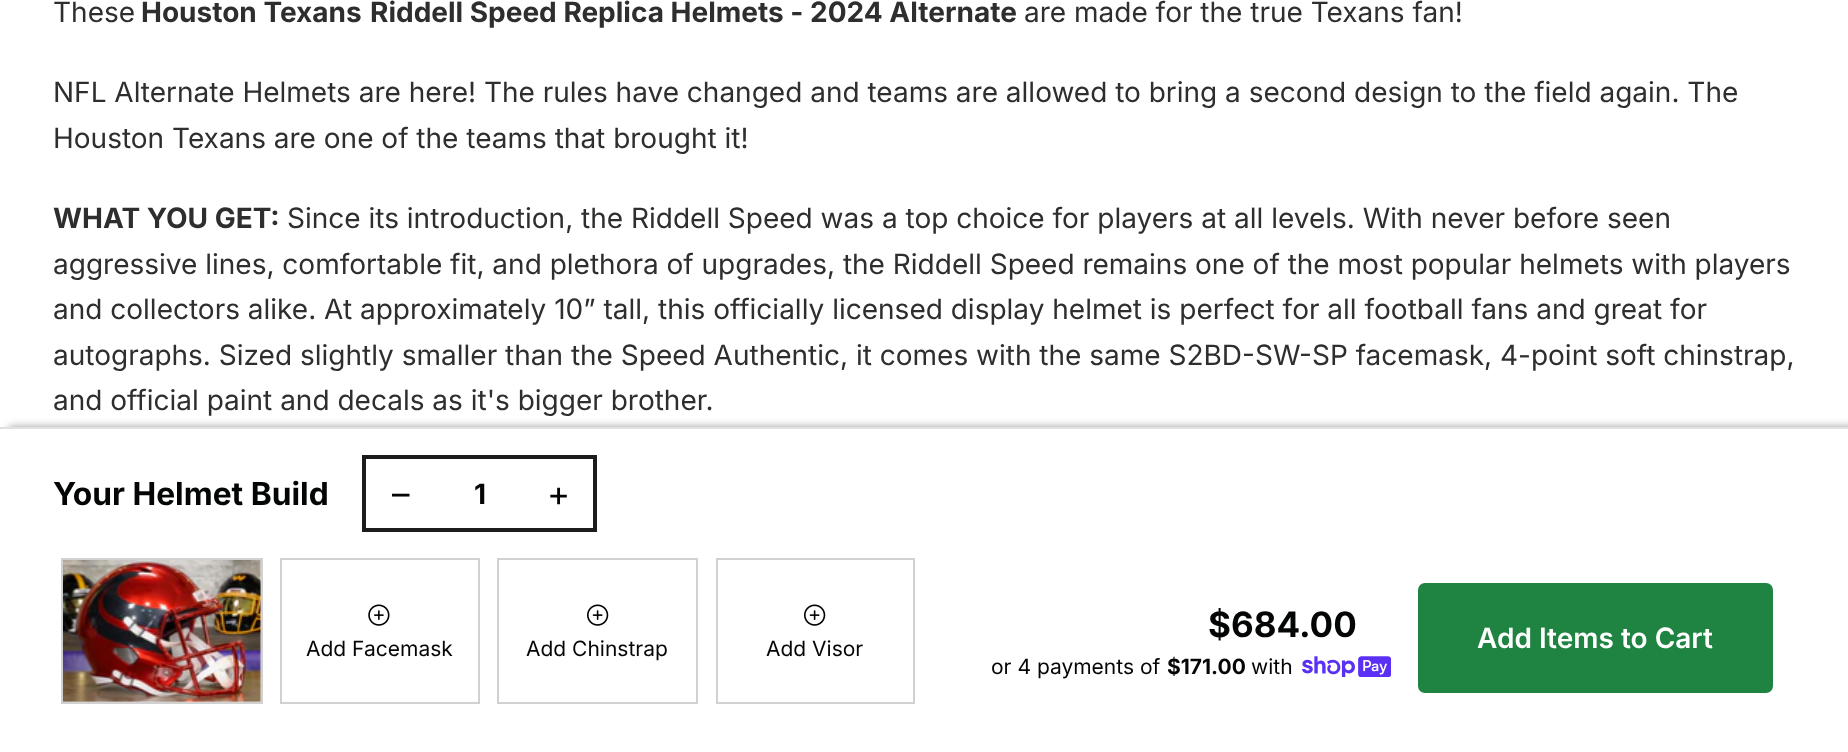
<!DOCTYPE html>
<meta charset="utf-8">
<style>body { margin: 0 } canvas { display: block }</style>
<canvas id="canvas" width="1848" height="752"></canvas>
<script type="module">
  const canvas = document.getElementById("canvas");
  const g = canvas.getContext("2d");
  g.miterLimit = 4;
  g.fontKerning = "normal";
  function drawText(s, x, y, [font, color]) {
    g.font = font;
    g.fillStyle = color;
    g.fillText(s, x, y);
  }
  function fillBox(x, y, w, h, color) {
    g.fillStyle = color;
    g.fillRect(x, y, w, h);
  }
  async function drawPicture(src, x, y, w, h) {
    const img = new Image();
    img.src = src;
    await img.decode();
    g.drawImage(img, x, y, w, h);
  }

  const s1 = ["28px Inter", "#2E2E2E"];
  const s2 = ["bold 28px Inter", "#2E2E2E"];
  const s3 = ["bold 31.75px Inter", "#040505"];
  const s4 = ["35px Inter", "#040505"];
  const s5 = ["bold 28px Inter", "#040505"];
  const s6 = ["21px Inter", "#040505"];
  const s7 = ["bold 35px Inter", "#040505"];
  const s8 = ["bold 21px Inter", "#040505"];
  const s9 = ["600 28px Inter", "#FFFFFF"];

  fillBox(0, 0, 1848, 752, "#FFFFFF");
  drawText("These", 53, 22, s1);
  drawText("Houston Texans", 141, 22, s2);
  drawText("Riddell Speed Replica Helmets - 2024 Alternate", 370, 22, s2);
  drawText("are made for the true Texans fan!", 1024, 22, s1);
  drawText("NFL Alternate Helmets are here! The rules have changed and teams are allowed to bring a second design to the field again. The", 53, 102, s1);
  drawText("Houston Texans are one of the teams that brought it!", 53, 148, s1);
  drawText("WHAT YOU GET:", 53, 228, s2);
  drawText("Since its introduction, the Riddell Speed was a top choice for players at all levels. With never before seen", 287, 228, s1);
  drawText("aggressive lines, comfortable fit, and plethora of upgrades, the Riddell Speed remains one of the most popular helmets with players", 53, 274, s1);
  drawText("and collectors alike. At approximately 10” tall, this officially licensed display helmet is perfect for all football fans and great for", 53, 319, s1);
  drawText("autographs. Sized slightly smaller than the Speed Authentic, it comes with the same S2BD-SW-SP facemask, 4-point soft chinstrap,", 53, 365, s1);
  drawText("and official paint and decals as it's bigger brother.", 53, 410, s1);
  g.fillStyle = "rgba(0, 0, 0, 0.4)";
  g.filter = "blur(4.5px)";
  g.beginPath();
  g.rect(9, 427, 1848, 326);
  g.fill();
  g.filter = "none";
  fillBox(0, 429, 1848, 323, "#FFFFFF");
  fillBox(0, 427, 1848, 2, "#E1E1E1");
  drawText("Your Helmet Build", 53, 505, s3);
  g.strokeStyle = "#1C1C1C";
  g.lineWidth = 4;
  g.strokeRect(364, 457, 231, 73);
  drawText("–", 392, 506, s4);
  drawText("1", 474, 504, s5);
  drawText("+", 547, 506, s4);
  g.strokeStyle = "#D1D1D1";
  g.lineWidth = 2;
  g.strokeRect(62, 559, 200, 144);
  await drawPicture("pic1.png", 63, 560, 198, 142);
  g.strokeRect(281, 559, 198, 144);
  await drawPicture("pic2.png", 368, 604, 22, 22);
  drawText("Add Facemask", 306, 656, s6);
  g.strokeRect(498, 559, 199, 144);
  await drawPicture("pic3.png", 587, 604, 22, 22);
  drawText("Add Chinstrap", 526, 656, s6);
  g.strokeRect(717, 559, 197, 144);
  await drawPicture("pic3.png", 804, 604, 22, 22);
  drawText("Add Visor", 766, 656, s6);
  drawText("$684.00", 1208, 637, s7);
  drawText("or 4 payments of", 991, 674, s6);
  drawText("$171.00", 1167, 674, s8);
  drawText("with", 1251, 674, s6);
  await drawPicture("pic4.png", 1302, 656, 89, 21);
  g.fillStyle = "#1F8441";
  g.beginPath();
  g.roundRect(1420, 585, 351, 106, 5);
  g.fill();
  g.strokeStyle = "#1F8441";
  g.lineWidth = 4;
  g.stroke();
  drawText("Add Items to Cart", 1477, 648, s9);
</script>
